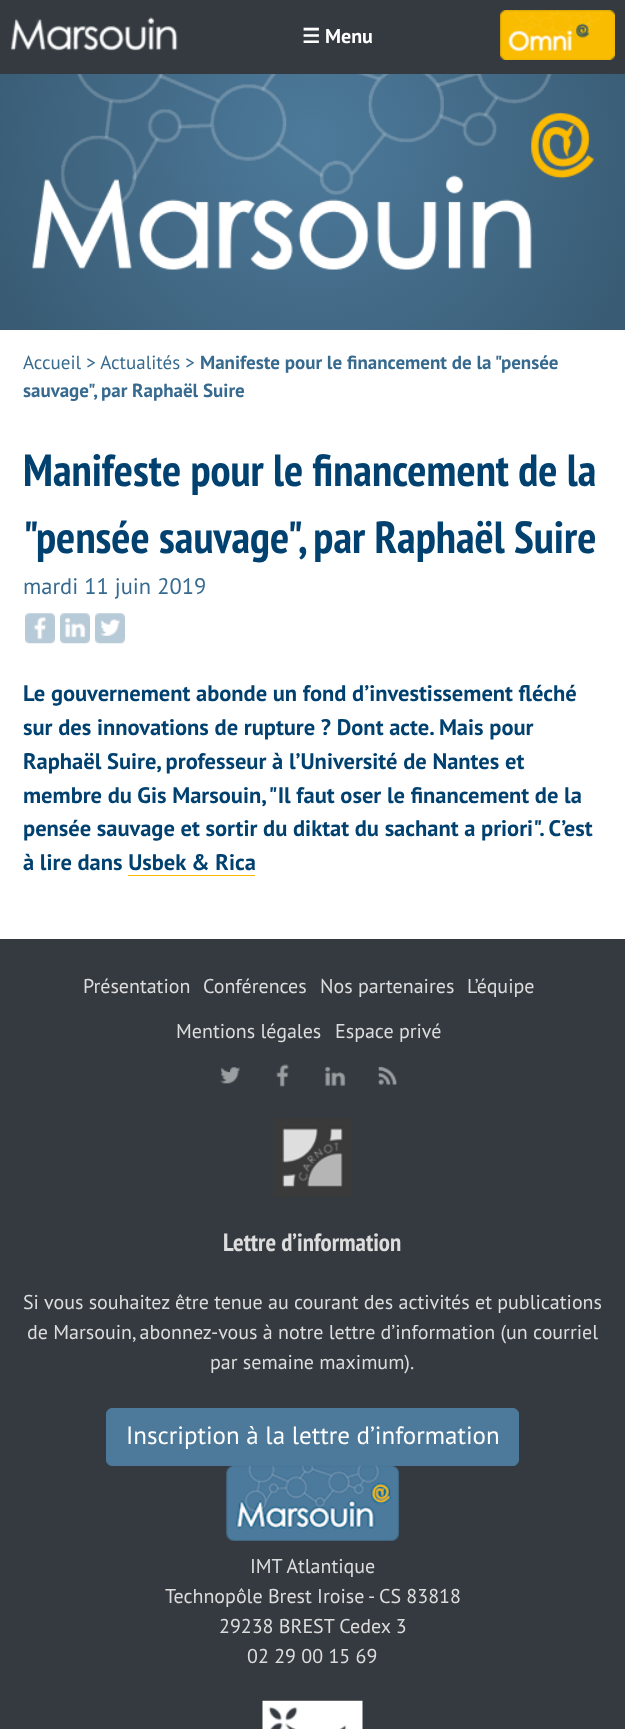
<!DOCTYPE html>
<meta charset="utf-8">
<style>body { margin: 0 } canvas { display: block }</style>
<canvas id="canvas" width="625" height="1729"></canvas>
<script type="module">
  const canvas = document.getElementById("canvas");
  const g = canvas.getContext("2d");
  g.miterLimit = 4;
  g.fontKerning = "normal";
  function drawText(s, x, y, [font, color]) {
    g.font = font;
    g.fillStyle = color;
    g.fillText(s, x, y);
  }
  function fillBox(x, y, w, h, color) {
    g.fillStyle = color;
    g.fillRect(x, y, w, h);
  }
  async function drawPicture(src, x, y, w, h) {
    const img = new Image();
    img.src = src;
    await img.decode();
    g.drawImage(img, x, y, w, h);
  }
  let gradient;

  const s1 = ["bold 20px DejaVu Sans", "#FFFFFF"];
  const s2 = ["bold 20px PT Sans", "#FFFFFF"];
  const s3 = ["19px PT Sans", "#376A8F"];
  const s4 = ["bold 19px PT Sans", "#376A8F"];
  const s5 = ["bold 45px PT Sans Narrow", "#004170"];
  const s6 = ["22.5px PT Sans", "#376A8F"];
  const s7 = ["bold 22.5px PT Sans", "#004170"];
  const s8 = ["20px PT Sans", "#DDDDDD"];
  const s9 = ["bold 25px PT Sans Narrow", "#DDDDDD"];
  const s10 = ["25px PT Sans", "#FFFFFF"];

  fillBox(0, 0, 625, 1729, "#FFFFFF");
  fillBox(0, 0, 625, 74, "#343A40");
  await drawPicture("pic1.png", 10, 16, 168, 35);
  drawText("☰", 302, 43, s1);
  drawText("Menu", 325, 43, s2);
  await drawPicture("pic2.png", 500, 10, 115, 50);
  gradient = g.createRadialGradient(313, 141, 0, 313, 141, 365);
  gradient.addColorStop(0, "#4D7A9B");
  gradient.addColorStop(1, "#385A72");
  g.fillStyle = gradient;
  g.fillRect(0, 74, 625, 256);
  await drawPicture("pic3.png", 32, 74, 562, 196);
  drawText("Accueil > Actualités >", 23, 369, s3);
  drawText("Manifeste pour le financement de la \"pensée", 200, 369, s4);
  drawText("sauvage\", par Raphaël Suire", 23, 397, s4);
  drawText("Manifeste pour le financement de la", 23, 486, s5);
  drawText("\"pensée sauvage\", par Raphaël Suire", 23, 553, s5);
  drawText("mardi 11 juin 2019", 23, 594, s6);
  await drawPicture("pic4.png", 25, 613, 30, 31);
  await drawPicture("pic5.png", 60, 613, 30, 31);
  await drawPicture("pic6.png", 95, 613, 30, 31);
  drawText("Le gouvernement abonde un fond d’investissement fléché", 23, 701, s7);
  drawText("sur des innovations de rupture ? Dont acte. Mais pour", 23, 735, s7);
  drawText("Raphaël Suire, professeur à l’Université de Nantes et", 23, 769, s7);
  drawText("membre du Gis Marsouin, \"Il faut oser le financement de la", 23, 803, s7);
  drawText("pensée sauvage et sortir du diktat du sachant a priori\". C’est", 23, 836, s7);
  drawText("à lire dans Usbek & Rica", 23, 870, s7);
  fillBox(128, 875, 127, 1, "#F9B900");
  fillBox(0, 939, 625, 790, "#343A40");
  drawText("Présentation", 83, 993, s8);
  drawText("Conférences", 203, 993, s8);
  drawText("Nos partenaires", 320, 993, s8);
  drawText("L’équipe", 467, 993, s8);
  drawText("Mentions légales", 176, 1038, s8);
  drawText("Espace privé", 335, 1038, s8);
  await drawPicture("pic7.png", 220, 1067, 20, 17);
  await drawPicture("pic8.png", 276, 1064, 13, 23);
  await drawPicture("pic9.png", 325, 1066, 21, 20);
  await drawPicture("pic10.png", 378, 1066, 19, 19);
  await drawPicture("pic11.png", 273, 1118, 79, 79);
  drawText("Lettre d’information", 223, 1251, s9);
  drawText("Si vous souhaitez être tenue au courant des activités et publications", 23, 1309, s8);
  drawText("de Marsouin, abonnez-vous à notre lettre d’information (un courriel", 27, 1339, s8);
  drawText("par semaine maximum).", 210, 1369, s8);
  g.fillStyle = "#4D7A9B";
  g.beginPath();
  g.roundRect(106.5, 1408.5, 412, 57, 5.5);
  g.fill();
  g.strokeStyle = "#4D7A9B";
  g.stroke();
  drawText("Inscription à la lettre d’information", 126, 1444, s10);
  await drawPicture("pic12.png", 226, 1465, 173, 76);
  drawText("IMT Atlantique", 250, 1573, s8);
  drawText("Technopôle Brest Iroise - CS 83818", 165, 1603, s8);
  drawText("29238 BREST Cedex 3", 219, 1633, s8);
  drawText("02 29 00 15 69", 247, 1663, s8);
  await drawPicture("pic13.png", 262, 1700, 101, 29);
</script>
